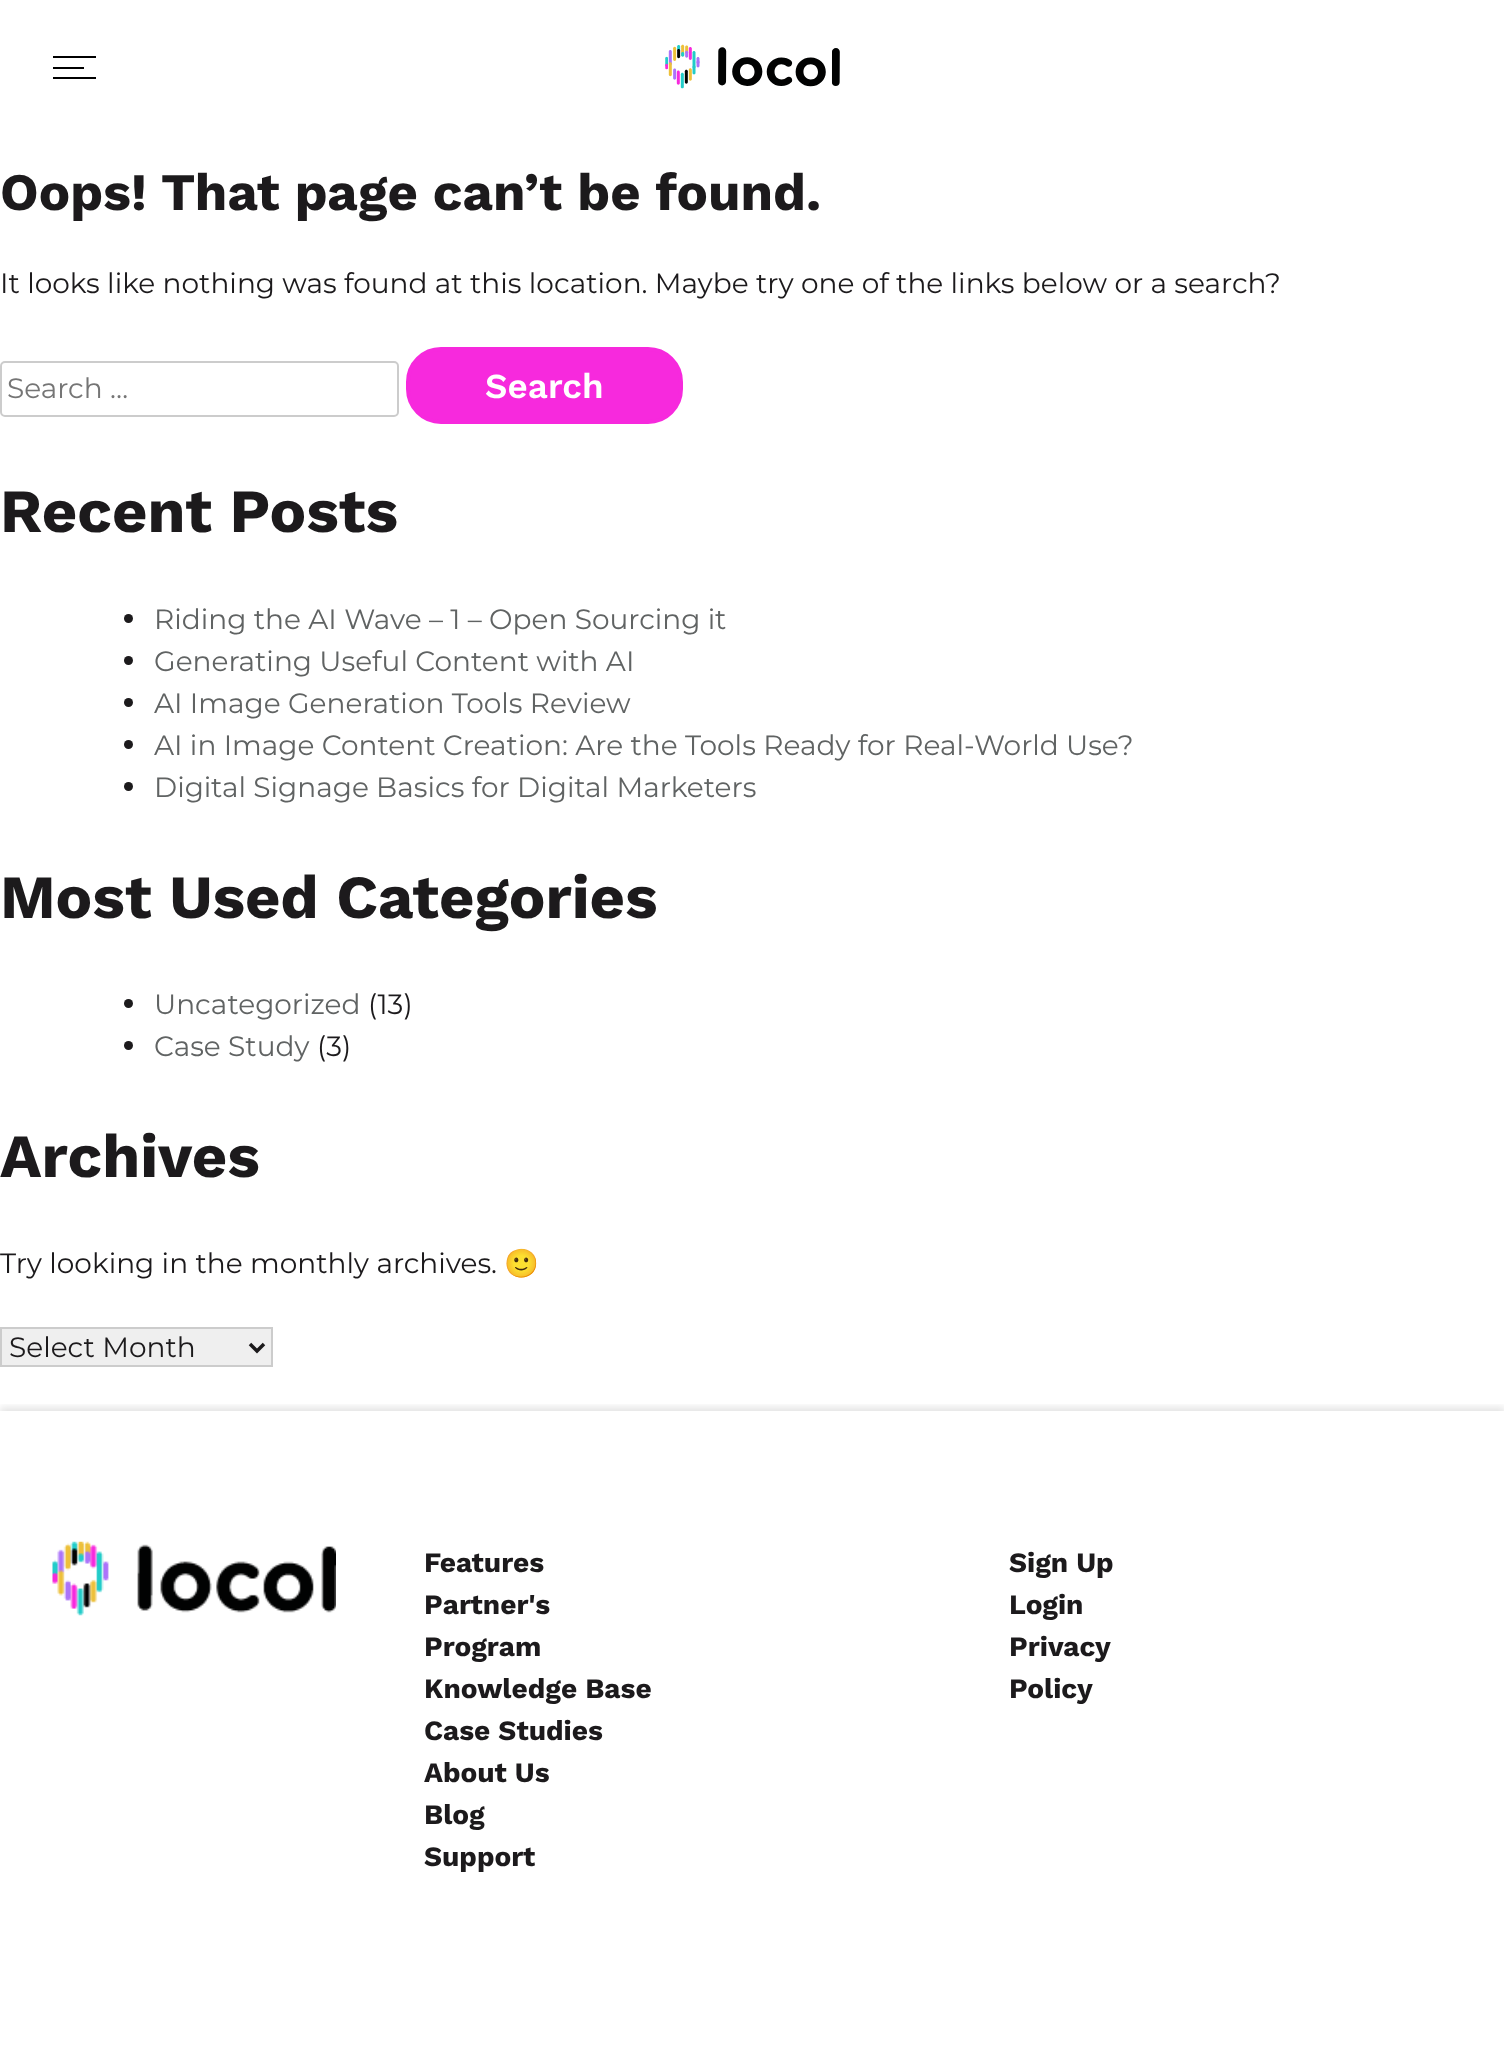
<!DOCTYPE html>
<meta charset="utf-8">
<style>body { margin: 0 } canvas { display: block }</style>
<canvas id="canvas" width="1504" height="2066"></canvas>
<script type="module">
  const canvas = document.getElementById("canvas");
  const g = canvas.getContext("2d");
  g.miterLimit = 4;
  g.fontKerning = "normal";
  function drawText(s, x, y, [font, color]) {
    g.font = font;
    g.fillStyle = color;
    g.fillText(s, x, y);
  }
  function fillBox(x, y, w, h, color) {
    g.fillStyle = color;
    g.fillRect(x, y, w, h);
  }
  async function drawPicture(src, x, y, w, h) {
    const img = new Image();
    img.src = src;
    await img.decode();
    g.drawImage(img, x, y, w, h);
  }

  const s1 = ["bold 52.5px Work Sans", "#1C1A1C"];
  const s2 = ["28px Montserrat", "#1C1A1C"];
  const s3 = ["28px Montserrat", "#757575"];
  const s4 = ["600 35px Work Sans", "#FFFFFF"];
  const s5 = ["bold 61.25px Work Sans", "#1C1A1C"];
  const s6 = ["28px Montserrat", "#606363"];
  const s7 = ["28px Noto Color Emoji", "#1C1A1C"];
  const s8 = ["bold 28px Work Sans", "#1C1A1C"];

  fillBox(0, 0, 1504, 2066, "#FFFFFF");
  fillBox(53, 56, 43, 2, "#000000");
  fillBox(53, 67, 31, 2, "#000000");
  fillBox(53, 77, 43, 2, "#000000");
  await drawPicture("pic1.png", 665, 44, 175, 45);
  drawText("Oops! That page can’t be found.", 0, 210, s1);
  drawText("It looks like nothing was found at this location. Maybe try one of the links below or a search?", 0, 293, s2);
  g.beginPath();
  g.roundRect(1, 362, 397, 54, 4);
  g.strokeStyle = "#CCCCCC";
  g.lineWidth = 2;
  g.stroke();
  drawText("Search …", 7, 398, s3);
  g.fillStyle = "#F729DD";
  g.beginPath();
  g.roundRect(408, 349, 273, 73, 33);
  g.fill();
  g.strokeStyle = "#F729DD";
  g.lineWidth = 4;
  g.stroke();
  drawText("Search", 485, 398, s4);
  drawText("Recent Posts", 0, 532, s5);
  g.beginPath();
  g.arc(128.5, 618.5, 4.5, 0, Math.PI * 2);
  g.fill();
  drawText("Riding the AI Wave – 1 – Open Sourcing it", 154, 629, s6);
  g.fillStyle = "#1C1A1C";
  g.beginPath();
  g.arc(128.5, 660.5, 4.5, 0, Math.PI * 2);
  g.fill();
  drawText("Generating Useful Content with AI", 154, 671, s6);
  g.fillStyle = "#1C1A1C";
  g.beginPath();
  g.arc(128.5, 702.5, 4.5, 0, Math.PI * 2);
  g.fill();
  drawText("AI Image Generation Tools Review", 154, 713, s6);
  g.fillStyle = "#1C1A1C";
  g.beginPath();
  g.arc(128.5, 744.5, 4.5, 0, Math.PI * 2);
  g.fill();
  drawText("AI in Image Content Creation: Are the Tools Ready for Real-World Use?", 154, 755, s6);
  g.fillStyle = "#1C1A1C";
  g.beginPath();
  g.arc(128.5, 786.5, 4.5, 0, Math.PI * 2);
  g.fill();
  drawText("Digital Signage Basics for Digital Marketers", 154, 797, s6);
  drawText("Most Used Categories", 0, 918, s5);
  g.beginPath();
  g.arc(128.5, 1003.5, 4.5, 0, Math.PI * 2);
  g.fill();
  drawText("Uncategorized", 154, 1014, s6);
  drawText("(13)", 368, 1014, s2);
  g.beginPath();
  g.arc(128.5, 1045.5, 4.5, 0, Math.PI * 2);
  g.fill();
  drawText("Case Study", 154, 1056, s6);
  drawText("(3)", 317, 1056, s2);
  drawText("Archives", 0, 1177, s5);
  drawText("Try looking in the monthly archives.", 0, 1273, s2);
  drawText("🙂", 504, 1273, s7);
  g.fillStyle = "#EFEFEF";
  g.beginPath();
  g.rect(1, 1328, 271, 38);
  g.fill();
  g.strokeStyle = "#CCCCCC";
  g.lineWidth = 2;
  g.stroke();
  g.beginPath();
  g.moveTo(250, 1344);
  g.lineTo(257, 1351);
  g.lineTo(264, 1344);
  g.strokeStyle = "#1C1A1C";
  g.lineWidth = 3.5;
  g.stroke();
  drawText("Select Month", 9, 1357, s2);
  g.save();
  g.beginPath();
  g.rect(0, 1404, 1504, 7);
  g.clip();
  g.fillStyle = "rgba(0, 0, 0, 0.1)";
  g.filter = "blur(3.5px)";
  g.beginPath();
  g.rect(0, 1407, 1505, 599);
  g.fill();
  g.filter = "none";
  g.restore();
  await drawPicture("pic2.png", 52, 1541, 284, 75);
  drawText("Features", 424, 1572, s8);
  drawText("Partner's", 424, 1614, s8);
  drawText("Program", 424, 1656, s8);
  drawText("Knowledge Base", 424, 1698, s8);
  drawText("Case Studies", 424, 1740, s8);
  drawText("About Us", 424, 1782, s8);
  drawText("Blog", 424, 1824, s8);
  drawText("Support", 424, 1866, s8);
  drawText("Sign Up", 1009, 1572, s8);
  drawText("Login", 1009, 1614, s8);
  drawText("Privacy", 1009, 1656, s8);
  drawText("Policy", 1009, 1698, s8);
</script>
